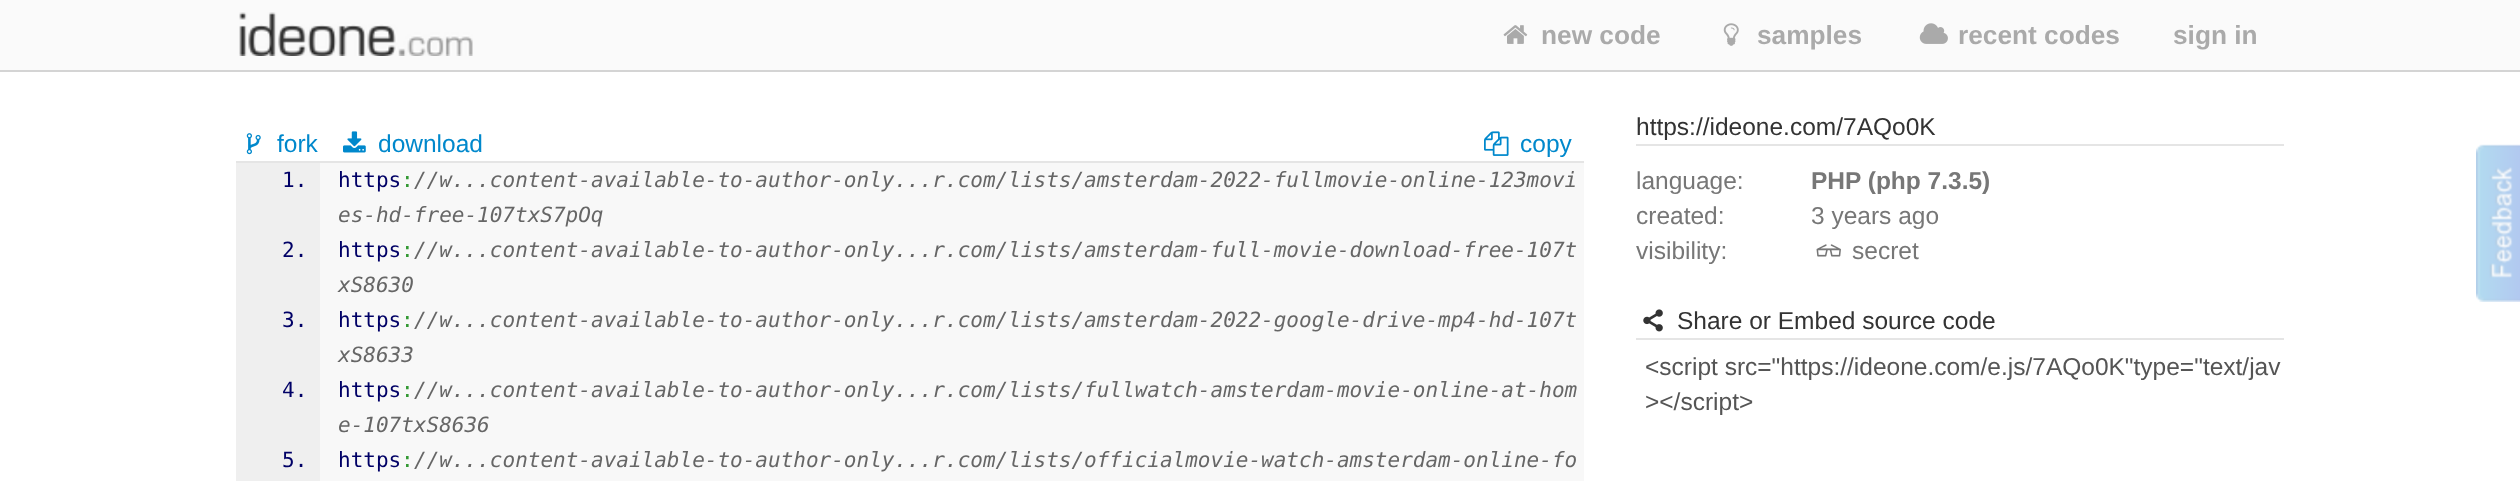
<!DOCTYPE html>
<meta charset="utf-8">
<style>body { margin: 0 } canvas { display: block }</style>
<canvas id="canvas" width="2520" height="481"></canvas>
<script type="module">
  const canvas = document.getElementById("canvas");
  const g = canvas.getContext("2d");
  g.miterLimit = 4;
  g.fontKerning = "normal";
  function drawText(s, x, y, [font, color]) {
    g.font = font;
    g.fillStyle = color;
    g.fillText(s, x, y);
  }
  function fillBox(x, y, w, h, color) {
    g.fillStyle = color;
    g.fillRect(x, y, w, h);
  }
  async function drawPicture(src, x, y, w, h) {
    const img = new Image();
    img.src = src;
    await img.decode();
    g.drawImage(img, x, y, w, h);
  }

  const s1 = ["bold 26.25px Liberation Sans", "#AAAAAA"];
  const s2 = ["24.5px Liberation Sans", "#0088CC"];
  const s3 = ["21px DejaVu Sans Mono", "#000066"];
  const s4 = ["21px DejaVu Sans Mono", "#339933"];
  const s5 = ["italic 21px DejaVu Sans Mono", "#666666"];
  const s6 = ["24.5px Liberation Sans", "#333333"];
  const s7 = ["24.5px Liberation Sans", "#777777"];
  const s8 = ["bold 24.5px Liberation Sans", "#777777"];
  const s9 = ["24.5px Liberation Sans", "#555555"];

  fillBox(0, 0, 2520, 481, "#FFFFFF");
  fillBox(0, 0, 2520, 70, "#FAFAFA");
  fillBox(0, 70, 2520, 2, "#D4D4D4");
  await drawPicture("pic1.png", 239, 12, 234, 44);
  await drawPicture("pic2.png", 1503, 25, 25, 19);
  drawText("new code", 1541, 44, s1);
  await drawPicture("pic3.png", 1723, 23, 16, 23);
  drawText("samples", 1757, 44, s1);
  await drawPicture("pic4.png", 1919, 23, 29, 21);
  drawText("recent codes", 1958, 44, s1);
  drawText("sign in", 2173, 44, s1);
  fillBox(236, 161, 1348, 2, "#E5E5E5");
  await drawPicture("pic5.png", 246, 133, 15, 22);
  drawText("fork", 277, 152, s2);
  await drawPicture("pic6.png", 343, 131, 23, 22);
  drawText("download", 378, 152, s2);
  await drawPicture("pic7.png", 1484, 131, 25, 25);
  drawText("copy", 1520, 152, s2);
  fillBox(236, 163, 84, 318, "#EFEFEF");
  fillBox(320, 163, 1264, 318, "#F8F8F8");
  drawText("1.", 282, 187, s3);
  drawText("https", 338, 187, s3);
  drawText(":", 401, 187, s4);
  drawText("//w...content-available-to-author-only...r.com/lists/amsterdam-2022-fullmovie-online-123movi", 414, 187, s5);
  drawText("es-hd-free-107txS7pOq", 338, 222, s5);
  drawText("2.", 282, 257, s3);
  drawText("https", 338, 257, s3);
  drawText(":", 401, 257, s4);
  drawText("//w...content-available-to-author-only...r.com/lists/amsterdam-full-movie-download-free-107t", 414, 257, s5);
  drawText("xS8630", 338, 292, s5);
  drawText("3.", 282, 327, s3);
  drawText("https", 338, 327, s3);
  drawText(":", 401, 327, s4);
  drawText("//w...content-available-to-author-only...r.com/lists/amsterdam-2022-google-drive-mp4-hd-107t", 414, 327, s5);
  drawText("xS8633", 338, 362, s5);
  drawText("4.", 282, 397, s3);
  drawText("https", 338, 397, s3);
  drawText(":", 401, 397, s4);
  drawText("//w...content-available-to-author-only...r.com/lists/fullwatch-amsterdam-movie-online-at-hom", 414, 397, s5);
  drawText("e-107txS8636", 338, 432, s5);
  drawText("5.", 282, 467, s3);
  drawText("https", 338, 467, s3);
  drawText(":", 401, 467, s4);
  drawText("//w...content-available-to-author-only...r.com/lists/officialmovie-watch-amsterdam-online-fo", 414, 467, s5);
  fillBox(1636, 144, 648, 2, "#E5E5E5");
  drawText("https://ideone.com/7AQo0K", 1636, 135, s6);
  drawText("language:", 1636, 189, s7);
  drawText("PHP (php 7.3.5)", 1811, 189, s8);
  drawText("created:", 1636, 224, s7);
  drawText("3 years ago", 1811, 224, s7);
  drawText("visibility:", 1636, 259, s7);
  await drawPicture("pic8.png", 1816, 244, 25, 13);
  drawText("secret", 1852, 259, s7);
  fillBox(1636, 338, 648, 2, "#E5E5E5");
  await drawPicture("pic9.png", 1643, 309, 20, 23);
  drawText("Share or Embed source code", 1677, 329, s6);
  drawText("<script src=\"https://ideone.com/e.js/7AQo0K\"type=\"text/jav", 1645, 375, s9);
  drawText("><\/script>", 1645, 410, s9);
  await drawPicture("pic10.png", 2476, 144, 44, 158);
</script>
